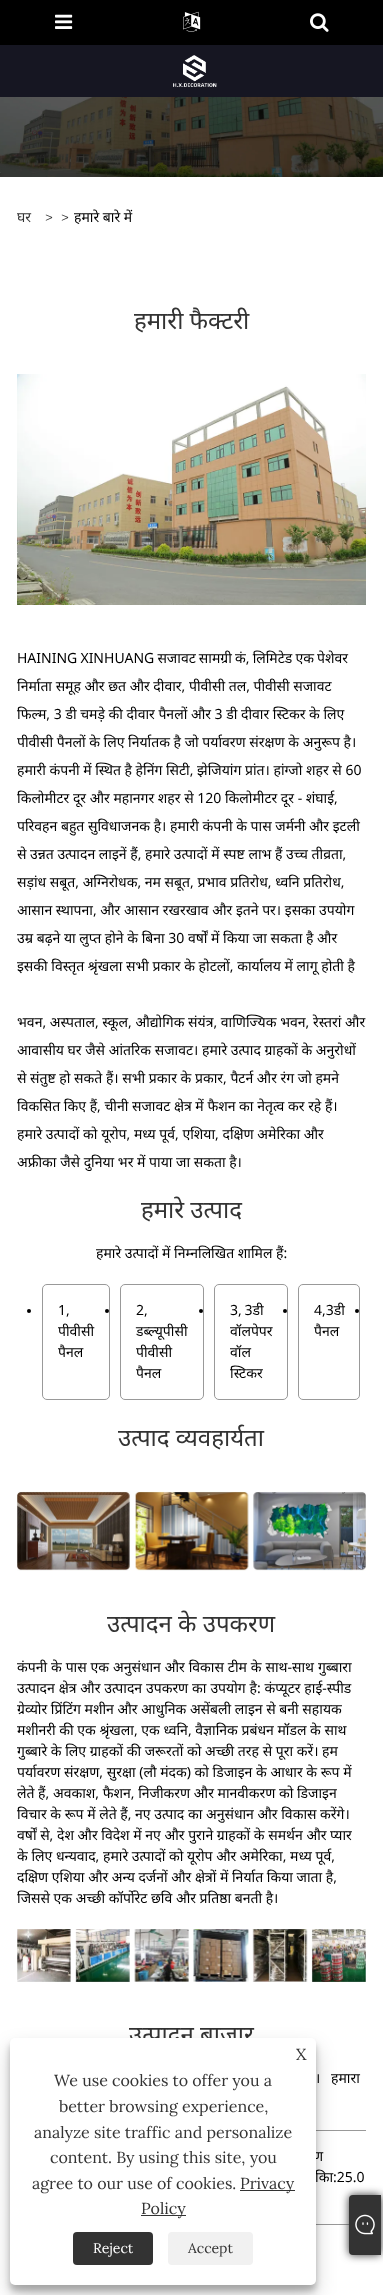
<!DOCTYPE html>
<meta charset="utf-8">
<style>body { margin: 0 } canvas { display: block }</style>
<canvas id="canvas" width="383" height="2295"></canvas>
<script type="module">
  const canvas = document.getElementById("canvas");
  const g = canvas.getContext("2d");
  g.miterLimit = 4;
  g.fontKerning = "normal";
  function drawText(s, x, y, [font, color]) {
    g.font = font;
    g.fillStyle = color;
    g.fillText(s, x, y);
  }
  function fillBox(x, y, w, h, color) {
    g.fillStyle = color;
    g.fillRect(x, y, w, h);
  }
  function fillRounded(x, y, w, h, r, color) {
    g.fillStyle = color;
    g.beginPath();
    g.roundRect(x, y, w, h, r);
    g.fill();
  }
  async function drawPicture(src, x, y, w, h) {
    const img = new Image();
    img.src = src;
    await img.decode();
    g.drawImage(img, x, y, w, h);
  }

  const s1 = ["14px Noto Sans", "#333333"];
  const s2 = ["14px Lora", "#333333"];
  const s3 = ["14px Noto Sans", "#000000"];
  const s4 = ["24px Noto Sans", "#333333"];
  const s5 = ["16px Lora", "#333333"];
  const s6 = ["14px Lora", "#FFFFFF"];

  fillBox(0, 0, 383, 2295, "#FFFFFF");
  fillBox(0, 0, 383, 45, "#000000");
  await drawPicture("pic1.png", 55, 14, 18, 15);
  await drawPicture("pic2.png", 183, 11, 18, 21);
  await drawPicture("pic3.png", 310, 13, 19, 19);
  fillBox(0, 45, 383, 52, "#161622");
  await drawPicture("pic4.png", 173, 55, 44, 32);
  await drawPicture("pic5.png", 0, 97, 383, 80);
  drawText("घर", 17, 222, s1);
  drawText(">", 45, 222, s2);
  drawText(">", 61, 222, s2);
  drawText("हमारे बारे में", 74, 222, s3);
  drawText("हमारी फैक्टरी", 134, 329, s4);
  await drawPicture("pic6.png", 17, 374, 349, 231);
  g.wordSpacing = "-0.5px";
  drawText("HAINING XINHUANG सजावट सामग्री कं, लिमिटेड एक पेशेवर", 17, 663, s3);
  g.wordSpacing = "0px";
  drawText("निर्माता समूह और छत और दीवार, पीवीसी तल, पीवीसी सजावट", 17, 691, s3);
  drawText("फिल्म, 3 डी चमड़े की दीवार पैनलों और 3 डी दीवार स्टिकर के लिए", 17, 719, s3);
  g.save();
  g.beginPath();
  g.rect(17, 354, 349, 823);
  g.clip();
  drawText("पीवीसी पैनलों के लिए निर्यातक है जो पर्यावरण संरक्षण के अनुरूप है।", 17, 747, s3);
  g.restore();
  drawText("हमारी कंपनी में स्थित है हेनिंग सिटी, झेजियांग प्रांत। हांग्जो शहर से 60", 17, 775, s3);
  drawText("किलोमीटर दूर और महानगर शहर से 120 किलोमीटर दूर - शंघाई,", 17, 803, s3);
  drawText("परिवहन बहुत सुविधाजनक है। हमारी कंपनी के पास जर्मनी और इटली", 17, 831, s3);
  g.save();
  g.beginPath();
  g.rect(17, 354, 349, 823);
  g.clip();
  drawText("से उन्नत उत्पादन लाइनें हैं, हमारे उत्पादों में स्पष्ट लाभ हैं उच्च तीव्रता,", 17, 859, s3);
  g.restore();
  drawText("सड़ांध सबूत, अग्निरोधक, नम सबूत, प्रभाव प्रतिरोध, ध्वनि प्रतिरोध,", 17, 887, s3);
  drawText("आसान स्थापना, और आसान रखरखाव और इतने पर। इसका उपयोग", 17, 915, s3);
  drawText("उम्र बढ़ने या लुप्त होने के बिना 30 वर्षों में किया जा सकता है और", 17, 943, s3);
  drawText("इसकी विस्तृत श्रृंखला सभी प्रकार के होटलों, कार्यालय में लागू होती है", 17, 971, s3);
  drawText("भवन, अस्पताल, स्कूल, औद्योगिक संयंत्र, वाणिज्यिक भवन, रेस्तरां और", 17, 1027, s3);
  drawText("आवासीय घर जैसे आंतरिक सजावट। हमारे उत्पाद ग्राहकों के अनुरोधों", 17, 1055, s3);
  g.save();
  g.beginPath();
  g.rect(17, 354, 349, 823);
  g.clip();
  drawText("से संतुष्ट हो सकते हैं। सभी प्रकार के प्रकार, पैटर्न और रंग जो हमने", 17, 1083, s3);
  g.restore();
  drawText("विकसित किए हैं, चीनी सजावट क्षेत्र में फैशन का नेतृत्व कर रहे हैं।", 17, 1111, s3);
  drawText("हमारे उत्पादों को यूरोप, मध्य पूर्व, एशिया, दक्षिण अमेरिका और", 17, 1139, s3);
  drawText("अफ्रीका जैसे दुनिया भर में पाया जा सकता है।", 17, 1167, s3);
  drawText("हमारे उत्पाद", 141, 1218, s4);
  drawText("हमारे उत्पादों में निम्नलिखित शामिल हैं:", 96, 1258, s3);
  g.beginPath();
  g.roundRect(42.5, 1284.5, 67, 115, 4.5);
  g.strokeStyle = "#999999";
  g.stroke();
  g.beginPath();
  g.arc(29, 1311, 2, 0, Math.PI * 2);
  g.fill();
  drawText("1,", 58, 1315, s3);
  drawText("पीवीसी", 58, 1336, s3);
  drawText("पैनल", 58, 1357, s3);
  g.beginPath();
  g.roundRect(120.5, 1284.5, 83, 115, 4.5);
  g.stroke();
  g.beginPath();
  g.arc(107, 1311, 2, 0, Math.PI * 2);
  g.fill();
  drawText("2,", 136, 1315, s3);
  drawText("डब्ल्यूपीसी", 136, 1336, s3);
  drawText("पीवीसी", 136, 1357, s3);
  drawText("पैनल", 136, 1378, s3);
  g.beginPath();
  g.roundRect(214.5, 1284.5, 73, 115, 4.5);
  g.stroke();
  g.beginPath();
  g.arc(201, 1311, 2, 0, Math.PI * 2);
  g.fill();
  g.wordSpacing = "-1px";
  drawText("3, 3डी", 230, 1315, s3);
  g.wordSpacing = "0px";
  drawText("वॉलपेपर", 230, 1336, s3);
  drawText("वॉल", 230, 1357, s3);
  drawText("स्टिकर", 230, 1378, s3);
  g.beginPath();
  g.roundRect(298.5, 1284.5, 61, 115, 4.5);
  g.stroke();
  g.beginPath();
  g.arc(285, 1311, 2, 0, Math.PI * 2);
  g.fill();
  drawText("4,3डी", 314, 1315, s3);
  drawText("पैनल", 314, 1336, s3);
  g.beginPath();
  g.arc(357, 1311, 2, 0, Math.PI * 2);
  g.fill();
  drawText("उत्पाद व्यवहार्यता", 118, 1446, s4);
  await drawPicture("pic7.png", 17, 1491, 349, 80);
  drawText("उत्पादन के उपकरण", 107, 1632, s4);
  g.wordSpacing = "0.25px";
  drawText("कंपनी के पास एक अनुसंधान और विकास टीम के साथ-साथ गुब्बारा", 17, 1672, s3);
  drawText("उत्पादन क्षेत्र और उत्पादन उपकरण का उपयोग है: कंप्यूटर हाई-स्पीड", 17, 1693, s3);
  g.wordSpacing = "0px";
  drawText("ग्रेव्योर प्रिंटिंग मशीन और आधुनिक असेंबली लाइन से बनी सहायक", 17, 1714, s3);
  drawText("मशीनरी की एक श्रृंखला, एक ध्वनि, वैज्ञानिक प्रबंधन मॉडल के साथ", 17, 1735, s3);
  drawText("गुब्बारे के लिए ग्राहकों की जरूरतों को अच्छी तरह से पूरा करें। हम", 17, 1756, s3);
  drawText("पर्यावरण संरक्षण, सुरक्षा (लौ मंदक) को डिजाइन के आधार के रूप में", 17, 1777, s3);
  drawText("लेते हैं, अवकाश, फैशन, निजीकरण और मानवीकरण को डिजाइन", 17, 1798, s3);
  drawText("विचार के रूप में लेते हैं, नए उत्पाद का अनुसंधान और विकास करेंगे।", 17, 1819, s3);
  drawText("वर्षों से, देश और विदेश में नए और पुराने ग्राहकों के समर्थन और प्यार", 17, 1840, s3);
  drawText("के लिए धन्यवाद, हमारे उत्पादों को यूरोप और अमेरिका, मध्य पूर्व,", 17, 1861, s3);
  drawText("दक्षिण एशिया और अन्य दर्जनों और क्षेत्रों में निर्यात किया जाता है,", 17, 1882, s3);
  drawText("जिससे एक अच्छी कॉर्पोरेट छवि और प्रतिष्ठा बनती है।", 17, 1903, s3);
  await drawPicture("pic8.png", 17, 1929, 349, 53);
  drawText("उत्पादन बाजार", 129, 2043, s4);
  drawText("ं।", 315, 2083, s3);
  drawText("हमारा", 331, 2083, s3);
  g.save();
  g.beginPath();
  g.rect(17, 2110, 349, 120);
  g.clip();
  g.beginPath();
  g.roundRect(276.5, 2130.5, 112, 94, 4.5);
  g.stroke();
  g.restore();
  drawText("ण", 313, 2161, s3);
  drawText("िका:25.0", 315, 2182, s3);
  g.fillStyle = "rgba(0, 0, 0, 0.23)";
  g.filter = "blur(3px)";
  g.beginPath();
  g.roundRect(10, 2044, 306, 247, 5);
  g.fill();
  g.filter = "none";
  g.fillStyle = "rgba(0, 0, 0, 0.19)";
  g.filter = "blur(10px)";
  g.beginPath();
  g.roundRect(10, 2048, 306, 247, 5);
  g.fill();
  g.filter = "none";
  fillRounded(10, 2038, 306, 247, 5, "#FFFFFF");
  drawText("X", 296, 2060, s5);
  drawText("We use cookies to offer you a", 54, 2086, s5);
  drawText("better browsing experience,", 59, 2112, s5);
  drawText("analyze site traffic and personalize", 34, 2138, s5);
  drawText("content. By using this site, you", 50, 2163, s5);
  drawText("agree to our use of cookies.", 32, 2189, s5);
  fillBox(240, 2190, 55, 1, "#333333");
  drawText("Privacy", 240, 2189, s5);
  fillBox(141, 2215, 45, 1, "#333333");
  drawText("Policy", 141, 2214, s5);
  fillRounded(73, 2232, 80, 33, 4, "#333333");
  drawText("Reject", 93, 2253, s6);
  fillRounded(168, 2232, 85, 33, 4, "#F1F1F1");
  drawText("Accept", 188, 2253, s2);
  g.filter = "blur(4px)";
  g.beginPath();
  g.roundRect(349, 2195, 32, 60, 4);
  g.fill();
  g.filter = "none";
  g.beginPath();
  g.roundRect(349, 2195, 32, 60, [4, 0, 0, 4]);
  g.fill();
  await drawPicture("pic9.png", 355, 2214, 20, 21);
</script>
